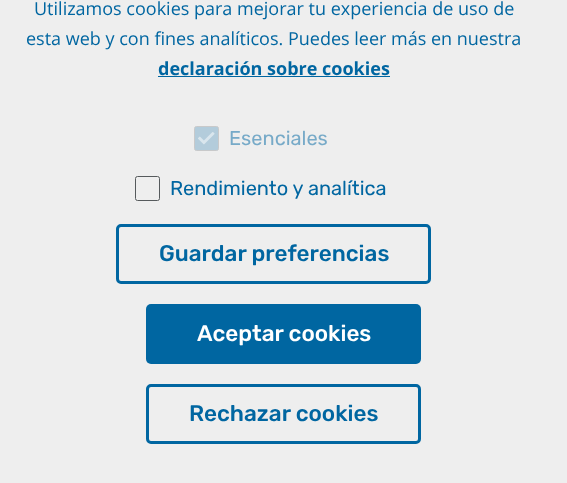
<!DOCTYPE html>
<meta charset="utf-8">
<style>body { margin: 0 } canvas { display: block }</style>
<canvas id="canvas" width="567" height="483"></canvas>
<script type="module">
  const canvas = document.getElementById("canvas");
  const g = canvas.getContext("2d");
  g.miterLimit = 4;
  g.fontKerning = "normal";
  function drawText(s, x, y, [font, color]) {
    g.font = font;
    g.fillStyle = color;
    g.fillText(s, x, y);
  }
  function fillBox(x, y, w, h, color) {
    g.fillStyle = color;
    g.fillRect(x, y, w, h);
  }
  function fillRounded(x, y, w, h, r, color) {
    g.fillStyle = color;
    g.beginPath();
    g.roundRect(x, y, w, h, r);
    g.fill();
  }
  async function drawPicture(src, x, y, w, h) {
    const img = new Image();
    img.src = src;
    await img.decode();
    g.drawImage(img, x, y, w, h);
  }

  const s1 = ["18px Open Sans", "#0066A1"];
  const s2 = ["bold 18px Open Sans", "#0066A1"];
  const s3 = ["20px Rubik", "#77AAC8"];
  const s4 = ["20px Rubik", "#0066A1"];
  const s5 = ["500 22.5px Rubik", "#0066A1"];
  const s6 = ["500 22.5px Rubik", "#FFFFFF"];

  fillBox(0, 0, 567, 483, "#EEEEEE");
  drawText("Utilizamos cookies para mejorar tu experiencia de uso de", 34, 15, s1);
  drawText("esta web y con fines analíticos. Puedes leer más en nuestra", 26, 45, s1);
  drawText("declaración sobre cookies", 158, 75, s2);
  fillBox(158, 76, 232, 1, "#0066A1");
  g.fillStyle = "#B3CCDB";
  g.beginPath();
  g.roundRect(194.5, 126.5, 24, 24, 2);
  g.fill();
  g.strokeStyle = "#C8C9CA";
  g.stroke();
  drawText("Esenciales", 229, 145, s3);
  await drawPicture("pic1.png", 198, 132, 17, 13);
  g.beginPath();
  g.roundRect(135.5, 176.5, 24, 24, 2);
  g.strokeStyle = "#565A5C";
  g.stroke();
  drawText("Rendimiento y analítica", 170, 195, s4);
  g.beginPath();
  g.roundRect(117.5, 225.5, 312, 57, 3.5);
  g.strokeStyle = "#0066A1";
  g.lineWidth = 3;
  g.stroke();
  drawText("Guardar preferencias", 159, 261, s5);
  fillRounded(146, 304, 275, 60, 5, "#0066A1");
  drawText("Aceptar cookies", 197, 341, s6);
  g.beginPath();
  g.roundRect(147.5, 385.5, 272, 57, 3.5);
  g.stroke();
  drawText("Rechazar cookies", 189, 421, s5);
</script>
